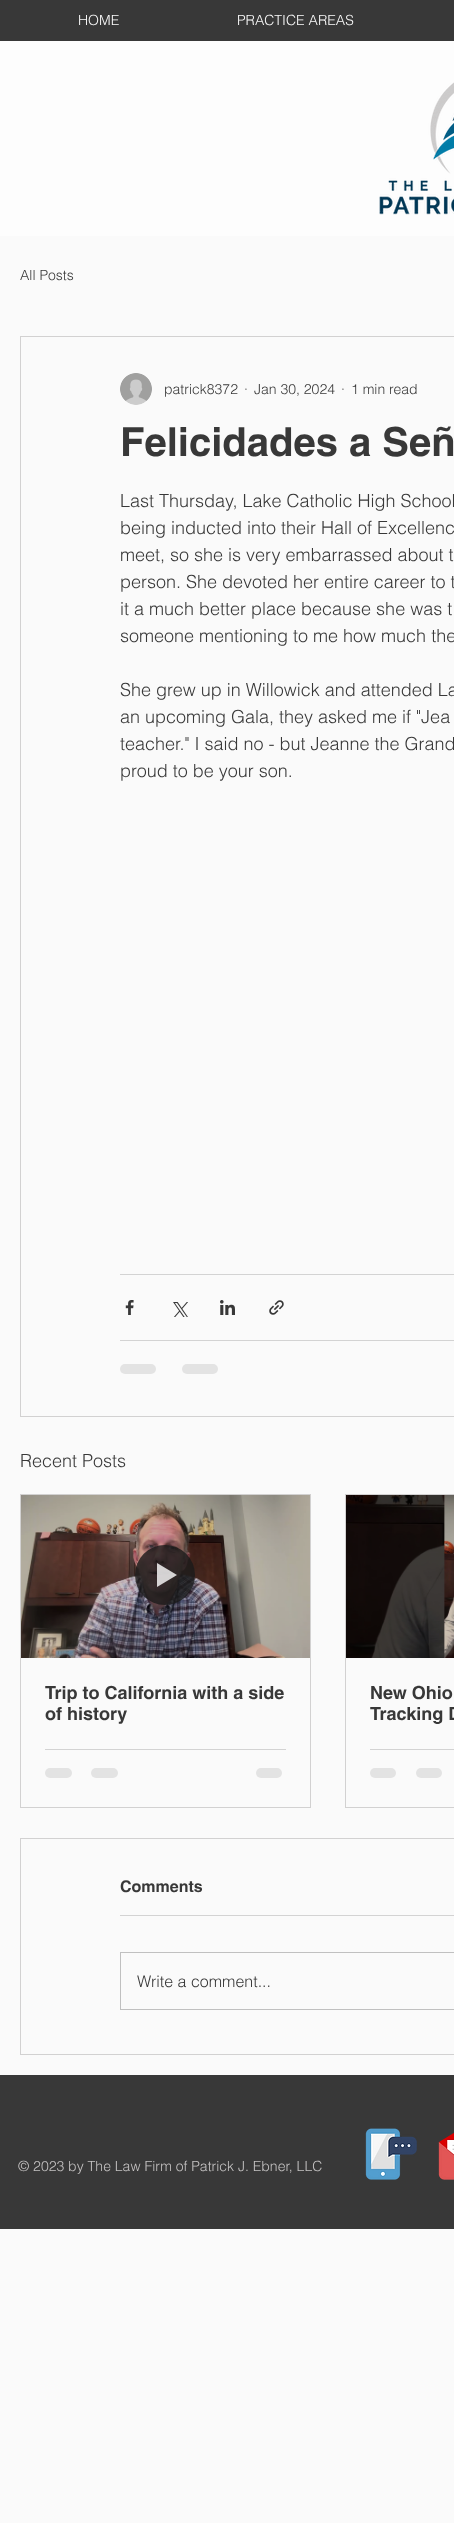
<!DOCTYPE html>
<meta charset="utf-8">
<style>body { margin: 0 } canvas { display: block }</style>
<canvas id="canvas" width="454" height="2523"></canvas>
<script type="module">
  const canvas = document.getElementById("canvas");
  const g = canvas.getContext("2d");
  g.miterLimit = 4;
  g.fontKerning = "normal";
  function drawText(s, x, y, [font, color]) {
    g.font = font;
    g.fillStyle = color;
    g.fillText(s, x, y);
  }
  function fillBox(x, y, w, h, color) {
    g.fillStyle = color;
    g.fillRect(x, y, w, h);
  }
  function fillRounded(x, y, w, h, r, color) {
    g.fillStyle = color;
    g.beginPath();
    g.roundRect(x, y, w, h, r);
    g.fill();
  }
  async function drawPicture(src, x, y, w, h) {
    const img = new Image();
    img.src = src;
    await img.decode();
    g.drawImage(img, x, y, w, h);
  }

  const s1 = ["300 14px helvetica", "#FAFAFA"];
  const s2 = ["300 14px helvetica", "#383838"];
  const s3 = ["bold 40px helvetica", "#383838"];
  const s4 = ["300 18px helvetica", "#383838"];
  const s5 = ["bold 18px helvetica", "#383838"];
  const s6 = ["bold 16px helvetica", "#383838"];
  const s7 = ["300 16px helvetica", "#383838"];
  const s8 = ["300 14px helvetica", "#C5C3C3"];

  fillBox(0, 0, 454, 2523, "#FAFAFA");
  fillBox(0, 0, 454, 41, "#383838");
  drawText("HOME", 78, 25, s1);
  drawText("PRACTICE AREAS", 237, 25, s1);
  fillBox(0, 41, 454, 195, "#FDFDFD");
  await drawPicture("pic1.png", 379, 82, 75, 133);
  drawText("All Posts", 20, 280, s2);
  g.strokeStyle = "#D2D1D1";
  g.strokeRect(20.5, 336.5, 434, 1080);
  await drawPicture("pic2.png", 120, 373, 32, 32);
  drawText("patrick8372", 164, 394, s2);
  drawText("·", 244, 394, s2);
  drawText("Jan 30, 2024", 254, 394, s2);
  drawText("·", 341, 394, s2);
  drawText("1 min read", 351, 394, s2);
  drawText("Felicidades a Señ", 120, 456, s3);
  drawText("Last Thursday, Lake Catholic High School", 120, 507, s4);
  drawText("being inducted into their Hall of Excellenc", 120, 534, s4);
  drawText("meet, so she is very embarrassed about t", 120, 561, s4);
  drawText("person. She devoted her entire career to t", 120, 588, s4);
  drawText("it a much better place because she was t", 120, 615, s4);
  drawText("someone mentioning to me how much the", 120, 642, s4);
  drawText("She grew up in Willowick and attended La", 120, 696, s4);
  drawText("an upcoming Gala, they asked me if \"Jea", 120, 723, s4);
  drawText("teacher.\" I said no - but Jeanne the Grand", 120, 750, s4);
  drawText("proud to be your son.", 120, 777, s4);
  fillBox(120, 1274, 334, 1, "#D3D3D3");
  await drawPicture("pic3.png", 125, 1300, 9, 15);
  await drawPicture("pic4.png", 173, 1302, 15, 15);
  await drawPicture("pic5.png", 220, 1300, 15, 15);
  await drawPicture("pic6.png", 269, 1300, 15, 15);
  fillBox(120, 1340, 334, 1, "#D3D3D3");
  fillRounded(120, 1364, 36, 10, 5, "#E3E3E3");
  fillRounded(182, 1364, 36, 10, 5, "#E3E3E3");
  drawText("Recent Posts", 20, 1467, s4);
  g.strokeRect(20.5, 1494.5, 290, 313);
  await drawPicture("pic7.png", 21, 1495, 289, 163);
  g.fillStyle = "rgba(26, 26, 26, 0.8)";
  g.beginPath();
  g.arc(165, 1575, 30, 0, Math.PI * 2);
  g.fill();
  g.fillStyle = "rgba(255, 255, 255, 0.8)";
  g.beginPath();
  g.moveTo(157, 1563);
  g.lineTo(157, 1587);
  g.lineTo(177, 1575);
  g.closePath();
  g.fill();
  drawText("Trip to California with a side", 45, 1699, s5);
  drawText("of history", 45, 1720, s5);
  fillBox(45, 1749, 241, 1, "#D3D3D3");
  fillRounded(45, 1768, 27, 10, 5, "#E3E3E3");
  fillRounded(91, 1768, 27, 10, 5, "#E3E3E3");
  fillRounded(256, 1768, 26, 10, 5, "#E3E3E3");
  g.strokeRect(345.5, 1494.5, 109, 313);
  await drawPicture("pic8.png", 346, 1495, 108, 163);
  drawText("New Ohio", 370, 1699, s5);
  drawText("Tracking D", 370, 1720, s5);
  fillBox(370, 1749, 84, 1, "#D3D3D3");
  fillRounded(370, 1768, 26, 10, 5, "#E3E3E3");
  fillRounded(416, 1768, 26, 10, 5, "#E3E3E3");
  g.strokeRect(20.5, 1838.5, 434, 216);
  drawText("Comments", 120, 1892, s6);
  fillBox(120, 1915, 334, 1, "#D3D3D3");
  g.strokeStyle = "#C0C0C0";
  g.strokeRect(120.5, 1952.5, 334, 57);
  drawText("Write a comment...", 137, 1987, s7);
  fillBox(0, 2075, 454, 154, "#383838");
  drawText("© 2023 by The Law Firm of Patrick J. Ebner, LLC", 18, 2171, s8);
  await drawPicture("pic9.png", 365, 2128, 52, 52);
  await drawPicture("pic10.png", 438, 2133, 16, 47);
</script>
